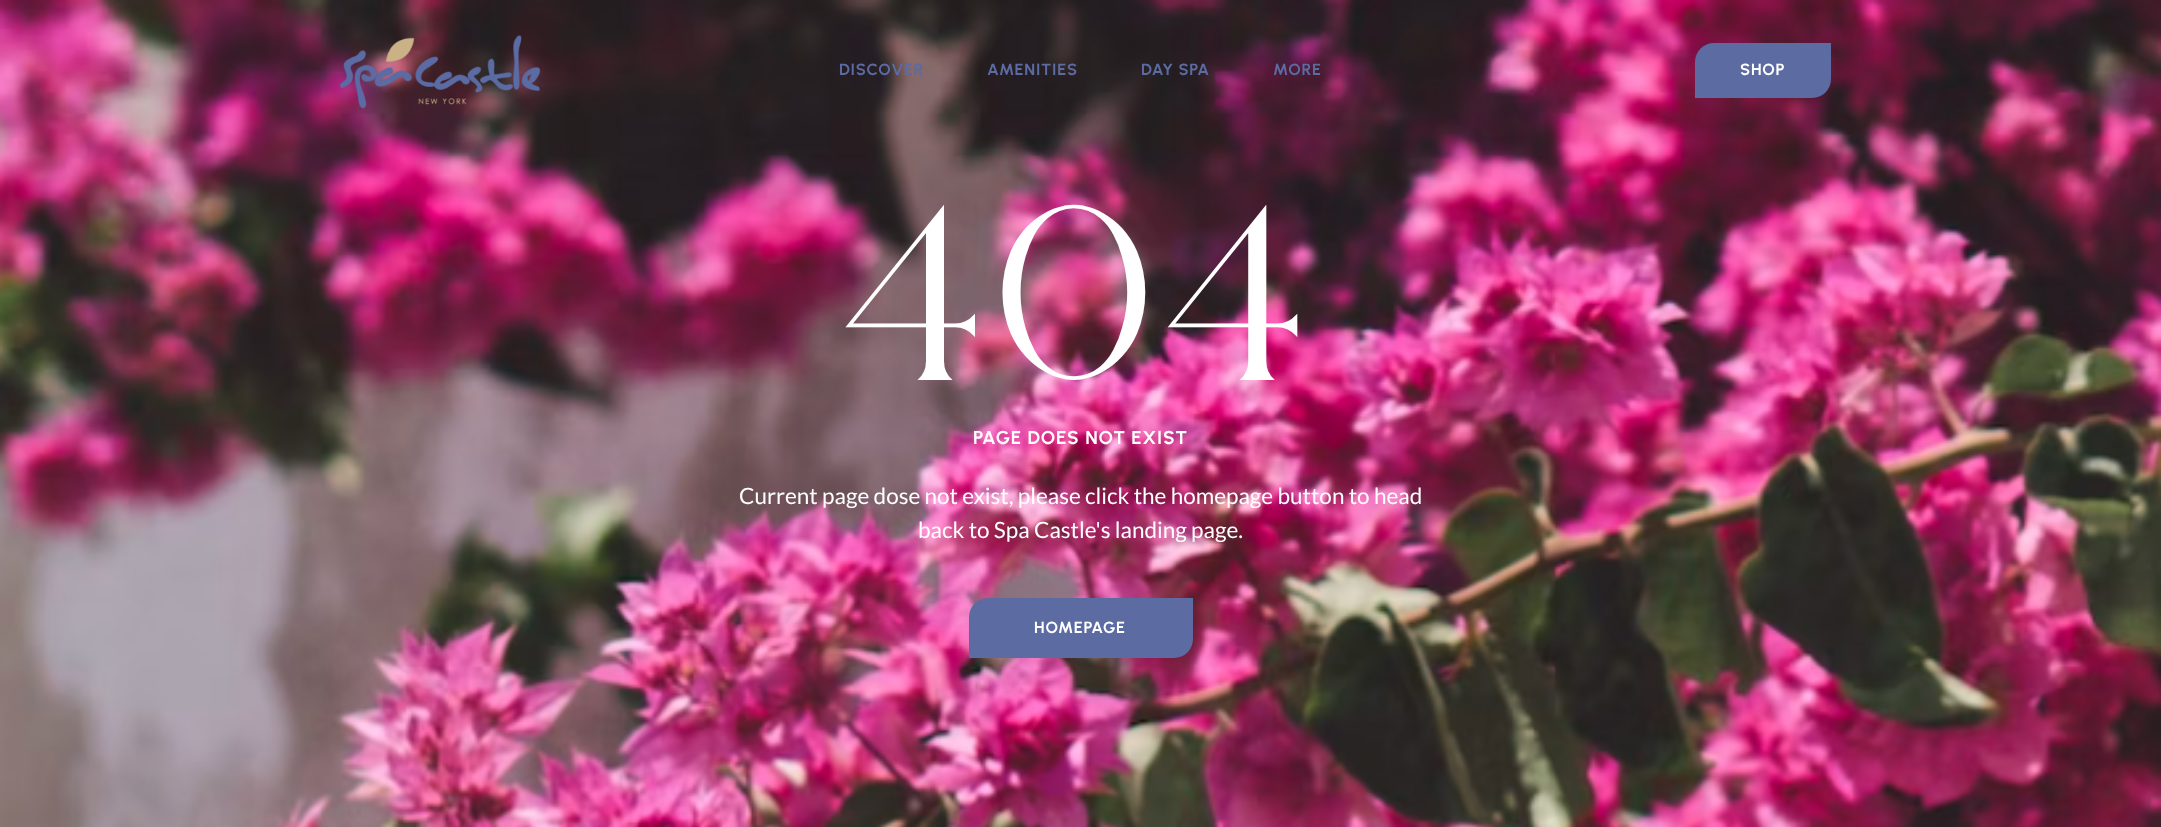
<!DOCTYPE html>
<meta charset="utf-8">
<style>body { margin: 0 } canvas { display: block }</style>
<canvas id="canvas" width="2161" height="827"></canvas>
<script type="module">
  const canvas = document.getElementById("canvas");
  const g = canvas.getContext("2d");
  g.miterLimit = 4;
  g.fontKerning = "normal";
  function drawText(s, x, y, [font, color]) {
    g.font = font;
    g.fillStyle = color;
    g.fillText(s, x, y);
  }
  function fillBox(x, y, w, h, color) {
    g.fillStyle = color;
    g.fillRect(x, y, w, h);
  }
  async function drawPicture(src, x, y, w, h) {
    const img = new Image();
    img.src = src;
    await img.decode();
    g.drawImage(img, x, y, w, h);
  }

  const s1 = ["bold 16.25px Urbanist", "#5C6BA2"];
  const s2 = ["bold 16.25px Urbanist", "#FFFFFF"];
  const s3 = ["250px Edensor", "#FFFFFF"];
  const s4 = ["bold 18.75px Urbanist", "#FFFFFF"];
  const s5 = ["22.5px Lato", "#FFFFFF"];

  fillBox(0, 0, 2161, 827, "#FFFFFF");
  await drawPicture("pic2.png", 0, 0, 2161, 827);
  await drawPicture("pic1.png", 340, 35, 201, 74);
  g.letterSpacing = "0.75px";
  drawText("DISCOVER", 839, 75, s1);
  drawText("AMENITIES", 987, 75, s1);
  drawText("DAY SPA", 1141, 75, s1);
  drawText("MORE", 1273, 75, s1);
  g.beginPath();
  g.roundRect(1695, 43, 136, 55, [19, 0, 19, 0]);
  g.fill();
  drawText("SHOP", 1740, 75, s2);
  g.letterSpacing = "12.5px";
  drawText("404", 845, 380, s3);
  g.letterSpacing = "0.9px";
  drawText("PAGE DOES NOT EXIST", 973, 444, s4);
  g.letterSpacing = "0px";
  drawText("Current page dose not exist, please click the homepage button to head", 739, 504, s5);
  drawText("back to Spa Castle's landing page.", 918, 538, s5);
  g.fillStyle = "#5C6BA2";
  g.beginPath();
  g.roundRect(969, 598, 224, 60, [19, 0, 19, 0]);
  g.fill();
  g.letterSpacing = "0.75px";
  drawText("HOMEPAGE", 1034, 633, s2);
</script>
